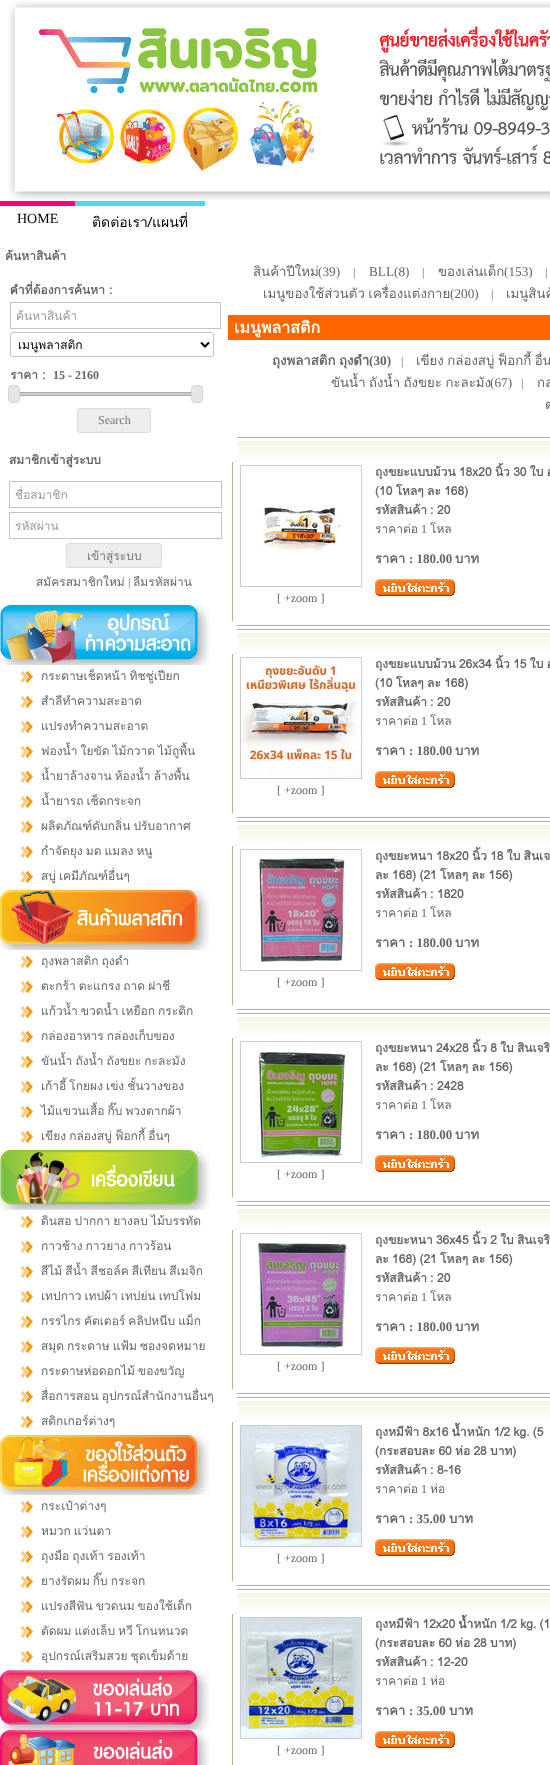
<!DOCTYPE html>
<meta charset="utf-8">
<style>body { margin: 0 } canvas { display: block }</style>
<canvas id="canvas" width="550" height="1765"></canvas>
<script type="module">
  const canvas = document.getElementById("canvas");
  const g = canvas.getContext("2d");
  g.miterLimit = 4;
  g.fontKerning = "normal";
  function drawText(s, x, y, [font, color]) {
    g.font = font;
    g.fillStyle = color;
    g.fillText(s, x, y);
  }
  function fillBox(x, y, w, h, color) {
    g.fillStyle = color;
    g.fillRect(x, y, w, h);
  }
  async function drawPicture(src, x, y, w, h) {
    const img = new Image();
    img.src = src;
    await img.decode();
    g.drawImage(img, x, y, w, h);
  }

  const s1 = ["14px Liberation Serif", "#000000"];
  const s2 = ["14px Loma", "#000000"];
  const s3 = ["bold 12px Loma", "#666666"];
  const s4 = ["12px Loma", "#999999"];
  const s5 = ["12px Loma", "#000000"];
  const s6 = ["bold 12px Liberation Serif", "#666666"];
  const s7 = ["12px Liberation Serif", "#777777"];
  const s8 = ["12px Loma", "#777777"];
  const s9 = ["12px Loma", "#666666"];
  const s10 = ["12px Liberation Serif", "#666666"];
  const s11 = ["13.25px Loma", "#666666"];
  const s12 = ["13.25px Liberation Serif", "#666666"];
  const s13 = ["bold 16px Loma", "#FFFFFF"];
  const s14 = ["bold 13.25px Loma", "#666666"];
  const s15 = ["bold 13.25px Liberation Serif", "#666666"];
  const s16 = ["bold 13px Loma", "#666666"];
  const s17 = ["bold 13px Liberation Serif", "#666666"];

  fillBox(0, 0, 550, 1765, "#FFFFFF");
  await drawPicture("pic1.png", 8, 1, 542, 199);
  fillBox(0, 201, 75, 5, "#FF0078");
  drawText("HOME", 17, 223, s1);
  fillBox(75, 201, 130, 5, "#49DAEF");
  drawText("ติดต่อเรา/แผนที่", 92, 227, s2);
  drawText("ค้นหาสินค้า", 5, 260, s3);
  drawText("คำที่ต้องการค้นหา :", 10, 294, s3);
  g.strokeStyle = "#C3C3C3";
  g.strokeRect(10.5, 302.5, 210, 26);
  g.save();
  g.beginPath();
  g.rect(16, 306, 204, 19);
  g.clip();
  drawText("ค้นหาสินค้า", 16, 320, s4);
  g.restore();
  g.beginPath();
  g.roundRect(10.5, 332.5, 203, 24, 2.5);
  g.stroke();
  g.beginPath();
  g.moveTo(201, 342.5);
  g.lineTo(205, 346.5);
  g.lineTo(209, 342.5);
  g.strokeStyle = "#000000";
  g.lineWidth = 2;
  g.stroke();
  drawText("เมนูพลาสติก", 18, 349, s5);
  drawText("ราคา :", 10, 379, s3);
  drawText("15 - 2160", 53, 379, s6);
  g.strokeStyle = "#AAAAAA";
  g.lineWidth = 1;
  g.strokeRect(15.5, 392.5, 184, 3);
  fillBox(16, 393, 183, 2, "#CCCCCC");
  g.fillStyle = "#E6E6E6";
  g.beginPath();
  g.roundRect(8.5, 385.5, 11, 17, 3.5);
  g.fill();
  g.strokeStyle = "#D3D3D3";
  g.stroke();
  g.beginPath();
  g.roundRect(191.5, 385.5, 11, 17, 3.5);
  g.fill();
  g.stroke();
  g.fillStyle = "#EDEDED";
  g.beginPath();
  g.roundRect(77.5, 408.5, 73, 24, 2.5);
  g.fill();
  g.strokeStyle = "#DCDCDC";
  g.stroke();
  drawText("Search", 98, 424, s7);
  drawText("สมาชิกเข้าสู่ระบบ", 9, 464, s3);
  g.strokeStyle = "#C3C3C3";
  g.strokeRect(9.5, 481.5, 212, 26);
  g.save();
  g.beginPath();
  g.rect(15, 485, 206, 19);
  g.clip();
  drawText("ชื่อสมาชิก", 15, 499, s4);
  g.restore();
  g.strokeRect(9.5, 512.5, 212, 26);
  drawText("รหัสผ่าน", 15, 530, s4);
  g.fillStyle = "#EDEDED";
  g.beginPath();
  g.roundRect(66.5, 543.5, 95, 24, 2.5);
  g.fill();
  g.strokeStyle = "#DCDCDC";
  g.stroke();
  drawText("เข้าสู่ระบบ", 87, 560, s8);
  drawText("สมัครสมาชิกใหม่", 36, 586, s9);
  drawText("|", 128, 586, s10);
  drawText("ลืมรหัสผ่าน", 133, 586, s9);
  await drawPicture("pic2.png", 0, 605, 210, 60);
  await drawPicture("pic3.png", 20, 671, 13, 12);
  g.wordSpacing = "-1px";
  drawText("กระดาษเช็ดหน้า ทิชชู่เปียก", 41, 680, s9);
  await drawPicture("pic3.png", 20, 696, 13, 12);
  g.wordSpacing = "0px";
  drawText("สำลีทำความสะอาด", 41, 705, s9);
  await drawPicture("pic3.png", 20, 721, 13, 12);
  drawText("แปรงทำความสะอาด", 41, 730, s9);
  await drawPicture("pic3.png", 20, 746, 13, 12);
  g.wordSpacing = "-1px";
  drawText("ฟองน้ำ ใยขัด ไม้กวาด ไม้ถูพื้น", 41, 755, s9);
  await drawPicture("pic3.png", 20, 771, 13, 12);
  drawText("น้ำยาล้างจาน ห้องน้ำ ล้างพื้น", 41, 780, s9);
  await drawPicture("pic3.png", 20, 796, 13, 12);
  drawText("น้ำยารถ เช็ดกระจก", 41, 805, s9);
  await drawPicture("pic3.png", 20, 821, 13, 12);
  drawText("ผลิตภัณฑ์ดับกลิ่น ปรับอากาศ", 41, 830, s9);
  await drawPicture("pic3.png", 20, 846, 13, 12);
  drawText("กำจัดยุง มด แมลง หนู", 41, 855, s9);
  await drawPicture("pic3.png", 20, 871, 13, 12);
  drawText("สบู่ เคมีภัณฑ์อื่นๆ", 41, 880, s9);
  await drawPicture("pic4.png", 0, 890, 210, 60);
  await drawPicture("pic3.png", 20, 956, 13, 12);
  drawText("ถุงพลาสติก ถุงดำ", 41, 965, s9);
  await drawPicture("pic3.png", 20, 981, 13, 12);
  drawText("ตะกร้า ตะแกรง ถาด ฝาชี", 41, 990, s9);
  await drawPicture("pic3.png", 20, 1006, 13, 12);
  drawText("แก้วน้ำ ขวดน้ำ เหยือก กระติก", 41, 1015, s9);
  await drawPicture("pic3.png", 20, 1031, 13, 12);
  drawText("กล่องอาหาร กล่องเก็บของ", 41, 1040, s9);
  await drawPicture("pic3.png", 20, 1056, 13, 12);
  drawText("ขันน้ำ ถังน้ำ ถังขยะ กะละมัง", 41, 1065, s9);
  await drawPicture("pic3.png", 20, 1081, 13, 12);
  drawText("เก้าอี้ โกยผง เข่ง ชั้นวางของ", 41, 1090, s9);
  await drawPicture("pic3.png", 20, 1106, 13, 12);
  drawText("ไม้แขวนเสื้อ กิ๊บ พวงตากผ้า", 41, 1115, s9);
  await drawPicture("pic3.png", 20, 1131, 13, 12);
  drawText("เขียง กล่องสบู่ ฟ็อกกี้ อื่นๆ", 41, 1140, s9);
  await drawPicture("pic5.png", 0, 1150, 210, 60);
  await drawPicture("pic3.png", 20, 1216, 13, 12);
  drawText("ดินสอ ปากกา ยางลบ ไม้บรรทัด", 41, 1225, s9);
  await drawPicture("pic3.png", 20, 1241, 13, 12);
  drawText("กาวช้าง กาวยาง กาวร้อน", 41, 1250, s9);
  await drawPicture("pic3.png", 20, 1266, 13, 12);
  drawText("สีไม้ สีน้ำ สีชอล์ค สีเทียน สีเมจิก", 41, 1275, s9);
  await drawPicture("pic3.png", 20, 1291, 13, 12);
  drawText("เทปกาว เทปผ้า เทปย่น เทปโฟม", 41, 1300, s9);
  await drawPicture("pic3.png", 20, 1316, 13, 12);
  drawText("กรรไกร คัตเตอร์ คลิปหนีบ แม็ก", 41, 1325, s9);
  await drawPicture("pic3.png", 20, 1341, 13, 12);
  drawText("สมุด กระดาษ แฟ้ม ซองจดหมาย", 41, 1350, s9);
  await drawPicture("pic3.png", 20, 1366, 13, 12);
  drawText("กระดาษห่อดอกไม้ ของขวัญ", 41, 1375, s9);
  await drawPicture("pic3.png", 20, 1391, 13, 12);
  drawText("สื่อการสอน อุปกรณ์สำนักงานอื่นๆ", 41, 1400, s9);
  await drawPicture("pic3.png", 20, 1416, 13, 12);
  g.wordSpacing = "0px";
  drawText("สติกเกอร์ต่างๆ", 41, 1425, s9);
  await drawPicture("pic6.png", 0, 1435, 210, 60);
  await drawPicture("pic3.png", 20, 1501, 13, 12);
  drawText("กระเป๋าต่างๆ", 41, 1510, s9);
  await drawPicture("pic3.png", 20, 1526, 13, 12);
  g.wordSpacing = "-1px";
  drawText("หมวก แว่นตา", 41, 1535, s9);
  await drawPicture("pic3.png", 20, 1551, 13, 12);
  drawText("ถุงมือ ถุงเท้า รองเท้า", 41, 1560, s9);
  await drawPicture("pic3.png", 20, 1576, 13, 12);
  drawText("ยางรัดผม กิ๊บ กระจก", 41, 1585, s9);
  await drawPicture("pic3.png", 20, 1601, 13, 12);
  drawText("แปรงสีฟัน ขวดนม ของใช้เด็ก", 41, 1610, s9);
  await drawPicture("pic3.png", 20, 1626, 13, 12);
  drawText("ตัดผม แต่งเล็บ หวี โกนหนวด", 41, 1635, s9);
  await drawPicture("pic3.png", 20, 1651, 13, 12);
  drawText("อุปกรณ์เสริมสวย ชุดเข็มด้าย", 41, 1660, s9);
  await drawPicture("pic7.png", 0, 1670, 210, 60);
  await drawPicture("pic8.png", 0, 1730, 210, 35);
  g.wordSpacing = "0px";
  drawText("สินค้าปีใหม่", 253, 276, s11);
  drawText("(39)", 318, 276, s12);
  drawText("|", 353, 276, s10);
  drawText("BLL(8)", 369, 276, s12);
  drawText("|", 422, 276, s10);
  drawText("ของเล่นเด็ก", 438, 276, s11);
  drawText("(153)", 504, 276, s12);
  drawText("|", 545, 276, s10);
  g.wordSpacing = "-1px";
  drawText("เมนูของใช้ส่วนตัว เครื่องแต่งกาย", 263, 298, s11);
  g.wordSpacing = "0px";
  drawText("(200)", 450, 298, s12);
  drawText("|", 491, 298, s10);
  drawText("เมนูสินค้", 506, 298, s11);
  fillBox(228, 315, 322, 25, "#FF6600");
  drawText("เมนูพลาสติก", 234, 333, s13);
  g.wordSpacing = "-1px";
  drawText("ถุงพลาสติก ถุงดำ", 272, 365, s14);
  g.wordSpacing = "0px";
  drawText("(30)", 369, 365, s15);
  drawText("|", 401, 365, s10);
  g.wordSpacing = "-1px";
  drawText("เขียง กล่องสบู่ ฟ็อกกี้ อื่น", 416, 365, s11);
  drawText("ขันน้ำ ถังน้ำ ถังขยะ กะละมัง", 331, 387, s11);
  g.wordSpacing = "0px";
  drawText("(67)", 490, 387, s12);
  drawText("|", 521, 387, s10);
  g.wordSpacing = "-1px";
  drawText("กล่", 537, 387, s11);
  drawText("ต", 545, 409, s11);
  await drawPicture("pic9.png", 237, 437, 313, 22);
  fillBox(232, 462, 1, 159, "#C4B287");
  g.wordSpacing = "-0.75px";
  drawText("ถุงขยะแบบม้วน 18x20 นิ้ว 30 ใบ อ", 375, 476, s3);
  drawText("(10 โหลๆ ละ 168)", 375, 495, s3);
  g.wordSpacing = "-1px";
  drawText("รหัสสินค้า :", 375, 514, s3);
  g.wordSpacing = "0px";
  drawText("20", 437, 514, s3);
  drawText("ราคาต่อ", 375, 533, s9);
  drawText("1", 421, 533, s10);
  drawText("โหล", 430, 533, s9);
  drawText("ราคา", 375, 563, s16);
  drawText(": 180.00", 409, 563, s17);
  drawText("บาท", 455, 563, s16);
  await drawPicture("pic10.png", 375, 579, 80, 17);
  g.strokeStyle = "#CCCCCC";
  g.strokeRect(240.5, 465.5, 121, 121);
  await drawPicture("pic11.png", 257, 506, 85, 46);
  drawText("[ +zoom ]", 277, 602, s10);
  fillBox(237, 625, 313, 1, "#C4B287");
  await drawPicture("pic9.png", 237, 629, 313, 22);
  fillBox(232, 654, 1, 159, "#C4B287");
  g.wordSpacing = "-0.75px";
  drawText("ถุงขยะแบบม้วน 26x34 นิ้ว 15 ใบ อ", 375, 668, s3);
  drawText("(10 โหลๆ ละ 168)", 375, 687, s3);
  g.wordSpacing = "-1px";
  drawText("รหัสสินค้า :", 375, 706, s3);
  g.wordSpacing = "0px";
  drawText("20", 437, 706, s3);
  drawText("ราคาต่อ", 375, 725, s9);
  drawText("1", 421, 725, s10);
  drawText("โหล", 430, 725, s9);
  drawText("ราคา", 375, 755, s16);
  drawText(": 180.00", 409, 755, s17);
  drawText("บาท", 455, 755, s16);
  await drawPicture("pic10.png", 375, 771, 80, 17);
  g.strokeRect(240.5, 657.5, 121, 121);
  await drawPicture("pic12.png", 241, 658, 120, 120);
  drawText("[ +zoom ]", 277, 794, s10);
  fillBox(237, 817, 313, 1, "#C4B287");
  await drawPicture("pic9.png", 237, 821, 313, 22);
  fillBox(232, 846, 1, 159, "#C4B287");
  g.wordSpacing = "-0.75px";
  drawText("ถุงขยะหนา 18x20 นิ้ว 18 ใบ สินเจ", 375, 860, s3);
  drawText("ละ 168) (21 โหลๆ ละ 156)", 375, 879, s3);
  g.wordSpacing = "-1px";
  drawText("รหัสสินค้า :", 375, 898, s3);
  g.wordSpacing = "0px";
  drawText("1820", 437, 898, s3);
  drawText("ราคาต่อ", 375, 917, s9);
  drawText("1", 421, 917, s10);
  drawText("โหล", 430, 917, s9);
  drawText("ราคา", 375, 947, s16);
  drawText(": 180.00", 409, 947, s17);
  drawText("บาท", 455, 947, s16);
  await drawPicture("pic10.png", 375, 963, 80, 17);
  g.strokeRect(240.5, 849.5, 121, 121);
  await drawPicture("pic13.png", 259, 856, 86, 106);
  drawText("[ +zoom ]", 277, 986, s10);
  fillBox(237, 1009, 313, 1, "#C4B287");
  await drawPicture("pic9.png", 237, 1013, 313, 22);
  fillBox(232, 1038, 1, 159, "#C4B287");
  g.wordSpacing = "-0.75px";
  drawText("ถุงขยะหนา 24x28 นิ้ว 8 ใบ สินเจริ", 375, 1052, s3);
  drawText("ละ 168) (21 โหลๆ ละ 156)", 375, 1071, s3);
  g.wordSpacing = "-1px";
  drawText("รหัสสินค้า :", 375, 1090, s3);
  g.wordSpacing = "0px";
  drawText("2428", 437, 1090, s3);
  drawText("ราคาต่อ", 375, 1109, s9);
  drawText("1", 421, 1109, s10);
  drawText("โหล", 430, 1109, s9);
  drawText("ราคา", 375, 1139, s16);
  drawText(": 180.00", 409, 1139, s17);
  drawText("บาท", 455, 1139, s16);
  await drawPicture("pic10.png", 375, 1155, 80, 17);
  g.strokeRect(240.5, 1041.5, 121, 121);
  await drawPicture("pic14.png", 258, 1052, 88, 106);
  drawText("[ +zoom ]", 277, 1178, s10);
  fillBox(237, 1201, 313, 1, "#C4B287");
  await drawPicture("pic9.png", 237, 1205, 313, 22);
  fillBox(232, 1230, 1, 159, "#C4B287");
  g.wordSpacing = "-0.75px";
  drawText("ถุงขยะหนา 36x45 นิ้ว 2 ใบ สินเจริ", 375, 1244, s3);
  drawText("ละ 168) (21 โหลๆ ละ 156)", 375, 1263, s3);
  g.wordSpacing = "-1px";
  drawText("รหัสสินค้า :", 375, 1282, s3);
  g.wordSpacing = "0px";
  drawText("20", 437, 1282, s3);
  drawText("ราคาต่อ", 375, 1301, s9);
  drawText("1", 421, 1301, s10);
  drawText("โหล", 430, 1301, s9);
  drawText("ราคา", 375, 1331, s16);
  drawText(": 180.00", 409, 1331, s17);
  drawText("บาท", 455, 1331, s16);
  await drawPicture("pic10.png", 375, 1347, 80, 17);
  g.strokeRect(240.5, 1233.5, 121, 121);
  await drawPicture("pic15.png", 257, 1243, 90, 105);
  drawText("[ +zoom ]", 277, 1370, s10);
  fillBox(237, 1393, 313, 1, "#C4B287");
  await drawPicture("pic9.png", 237, 1397, 313, 22);
  fillBox(232, 1422, 1, 159, "#C4B287");
  g.wordSpacing = "-0.75px";
  drawText("ถุงหมีฟ้า 8x16 น้ำหนัก 1/2 kg. (5", 375, 1436, s3);
  drawText("(กระสอบละ 60 ห่อ 28 บาท)", 375, 1455, s3);
  g.wordSpacing = "-1px";
  drawText("รหัสสินค้า :", 375, 1474, s3);
  g.wordSpacing = "0px";
  drawText("8-16", 437, 1474, s3);
  drawText("ราคาต่อ", 375, 1493, s9);
  drawText("1", 421, 1493, s10);
  drawText("ห่อ", 430, 1493, s9);
  drawText("ราคา", 375, 1523, s16);
  drawText(": 35.00", 409, 1523, s17);
  drawText("บาท", 449, 1523, s16);
  await drawPicture("pic10.png", 375, 1539, 80, 17);
  g.strokeRect(240.5, 1425.5, 121, 121);
  await drawPicture("pic16.png", 241, 1426, 120, 120);
  drawText("[ +zoom ]", 277, 1562, s10);
  fillBox(237, 1585, 313, 1, "#C4B287");
  await drawPicture("pic9.png", 237, 1589, 313, 22);
  fillBox(232, 1614, 1, 151, "#C4B287");
  g.wordSpacing = "-0.75px";
  drawText("ถุงหมีฟ้า 12x20 น้ำหนัก 1/2 kg. (1", 375, 1628, s3);
  drawText("(กระสอบละ 60 ห่อ 28 บาท)", 375, 1647, s3);
  g.wordSpacing = "-1px";
  drawText("รหัสสินค้า :", 375, 1666, s3);
  g.wordSpacing = "0px";
  drawText("12-20", 437, 1666, s3);
  drawText("ราคาต่อ", 375, 1685, s9);
  drawText("1", 421, 1685, s10);
  drawText("ห่อ", 430, 1685, s9);
  drawText("ราคา", 375, 1715, s16);
  drawText(": 35.00", 409, 1715, s17);
  drawText("บาท", 449, 1715, s16);
  await drawPicture("pic10.png", 375, 1731, 80, 17);
  g.strokeRect(240.5, 1617.5, 121, 121);
  await drawPicture("pic17.png", 241, 1618, 120, 120);
  drawText("[ +zoom ]", 277, 1754, s10);
</script>
